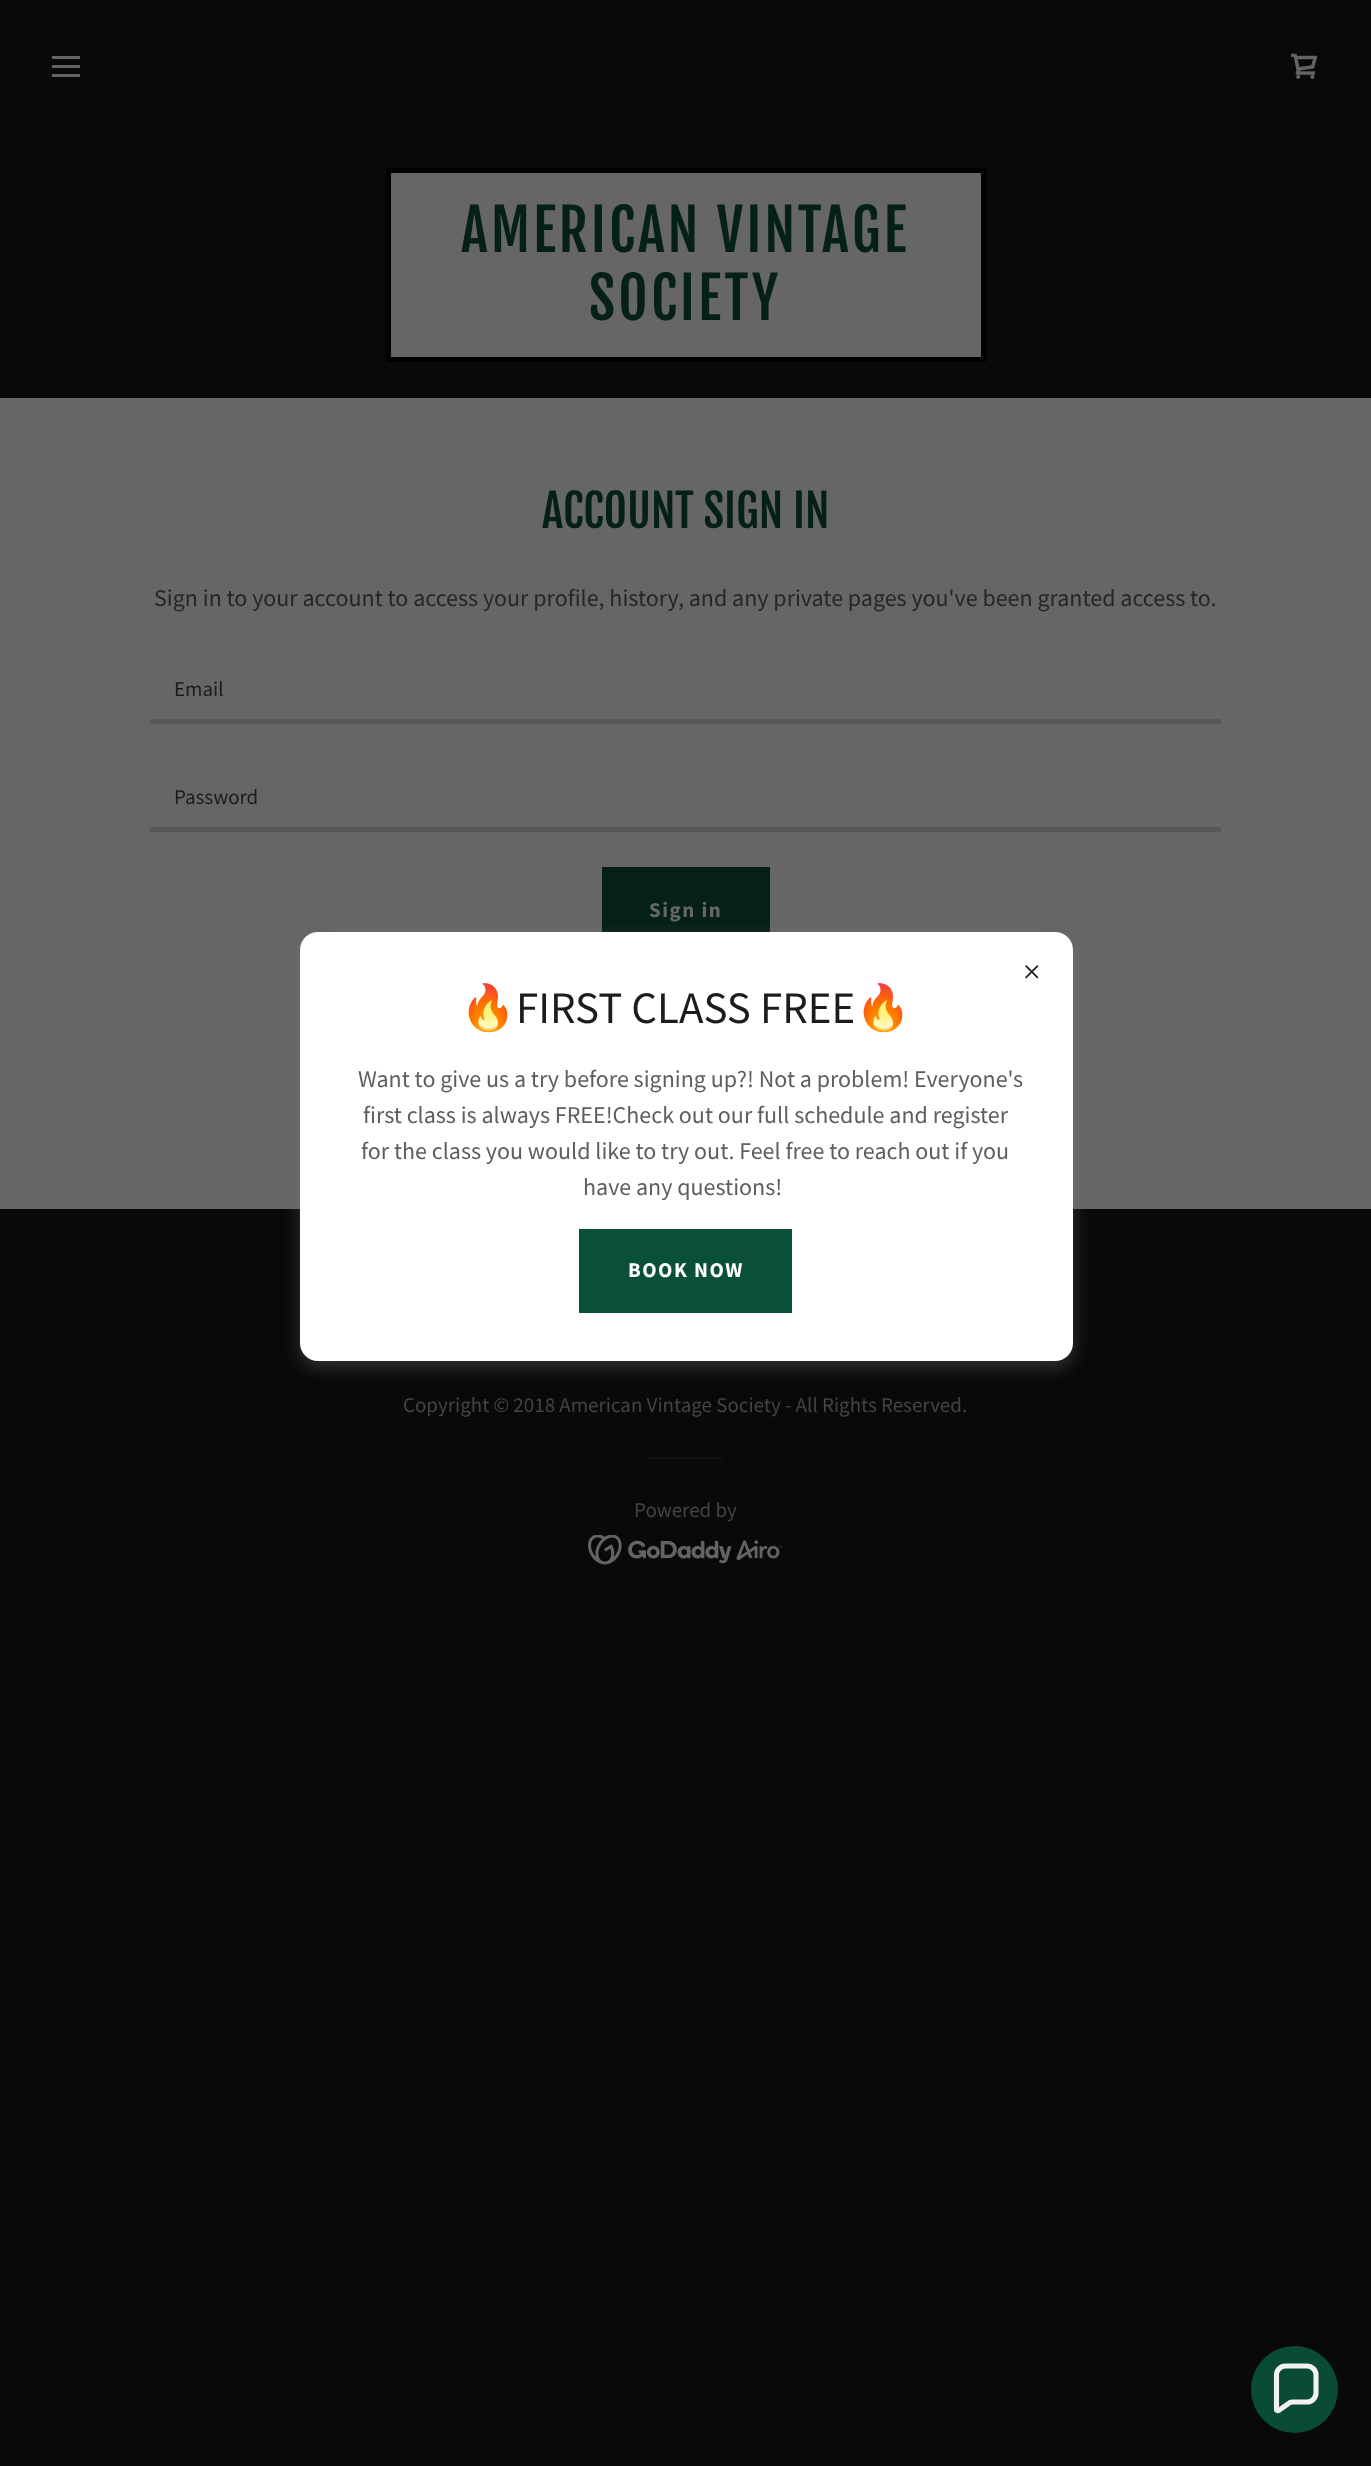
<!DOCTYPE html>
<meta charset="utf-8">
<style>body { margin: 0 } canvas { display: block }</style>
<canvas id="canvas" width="1371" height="2466"></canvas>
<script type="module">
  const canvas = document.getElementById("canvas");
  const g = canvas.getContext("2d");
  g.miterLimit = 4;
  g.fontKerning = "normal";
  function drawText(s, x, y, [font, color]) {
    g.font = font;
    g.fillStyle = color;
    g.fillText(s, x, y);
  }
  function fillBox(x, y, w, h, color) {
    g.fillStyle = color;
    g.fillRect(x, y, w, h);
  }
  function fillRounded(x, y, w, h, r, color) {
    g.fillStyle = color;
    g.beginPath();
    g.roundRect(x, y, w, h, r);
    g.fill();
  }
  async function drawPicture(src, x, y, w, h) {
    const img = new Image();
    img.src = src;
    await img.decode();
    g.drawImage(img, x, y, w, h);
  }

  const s1 = ["57px Fjalla One", "#042017"];
  const s2 = ["45px Fjalla One", "#042017"];
  const s3 = ["24px Source Sans Pro", "#262626"];
  const s4 = ["21px Source Sans Pro", "#1C1C1C"];
  const s5 = ["bold 21px Source Sans Pro", "#666666"];
  const s6 = ["45px Noto Color Emoji", "#1C1C1C"];
  const s7 = ["45px Source Sans Pro", "#1C1C1C"];
  const s8 = ["24px Source Sans Pro", "#5E5E5E"];
  const s9 = ["bold 21px Source Sans Pro", "#FFFFFF"];
  const s10 = ["21px Source Sans Pro", "#444444"];

  fillBox(0, 0, 1371, 2466, "#090909");
  fillBox(52, 56, 28, 3, "#636363");
  fillBox(52, 65, 28, 3, "#636363");
  fillBox(52, 74, 28, 3, "#636363");
  await drawPicture("pic1.png", 1291, 53, 27, 26);
  g.fillStyle = "#666666";
  g.beginPath();
  g.rect(388.5, 170.5, 595, 189);
  g.fill();
  g.strokeStyle = "#000000";
  g.lineWidth = 5;
  g.stroke();
  g.letterSpacing = "3px";
  drawText("AMERICAN VINTAGE", 461, 252, s1);
  drawText("SOCIETY", 589, 320, s1);
  fillBox(0, 398, 1371, 811, "#666666");
  g.letterSpacing = "0px";
  drawText("ACCOUNT SIGN IN", 542, 528, s2);
  drawText("Sign in to your account to access your profile, history, and any private pages you've been granted access to.", 154, 606, s3);
  fillBox(150, 719, 1071, 5, "#575757");
  drawText("Email", 174, 696, s4);
  fillBox(150, 827, 1071, 5, "#575757");
  drawText("Password", 174, 804, s4);
  fillBox(602, 867, 168, 65, "#042017");
  g.letterSpacing = "1.5px";
  drawText("Sign in", 649, 917, s5);
  g.fillStyle = "rgba(117, 117, 117, 0.4)";
  g.filter = "blur(9px)";
  g.beginPath();
  g.roundRect(300, 938, 773, 429, 18);
  g.fill();
  g.filter = "none";
  fillRounded(300, 932, 773, 429, 18, "#FFFFFF");
  await drawPicture("pic2.png", 1025, 965, 14, 14);
  g.letterSpacing = "0px";
  drawText("🔥", 460, 1023, s6);
  drawText("FIRST CLASS FREE", 516, 1023, s7);
  drawText("🔥", 855, 1023, s6);
  drawText("Want to give us a try before signing up?! Not a problem! Everyone's", 358, 1087, s8);
  drawText("first class is always FREE!Check out our full schedule and register", 363, 1123, s8);
  drawText("for the class you would like to try out. Feel free to reach out if you", 361, 1159, s8);
  drawText("have any questions!", 583, 1195, s8);
  fillBox(579, 1229, 213, 84, "#0A4F39");
  g.letterSpacing = "1.5px";
  drawText("BOOK NOW", 628, 1277, s9);
  g.letterSpacing = "0px";
  drawText("Copyright © 2018 American Vintage Society - All Rights Reserved.", 403, 1412, s10);
  fillBox(648, 1457, 75, 2, "#111111");
  drawText("Powered by", 634, 1517, s10);
  await drawPicture("pic3.png", 588, 1535, 194, 30);
  g.fillStyle = "#0A4B37";
  g.beginPath();
  g.arc(1294.5, 2389.5, 43.5, 0, Math.PI * 2);
  g.fill();
  g.beginPath();
  g.moveTo(1307, 2366);
  g.lineTo(1285.5, 2366);
  g.bezierCurveTo(1280.5, 2366, 1276.5, 2370, 1276.5, 2375);
  g.lineTo(1276.5, 2409.5);
  g.bezierCurveTo(1276.5, 2410.5, 1277.5, 2411, 1278.5, 2410.5);
  g.lineTo(1288.5, 2403.5);
  g.bezierCurveTo(1289.5, 2402.5, 1291, 2402, 1292.5, 2402);
  g.lineTo(1307, 2402);
  g.bezierCurveTo(1312, 2402, 1316, 2398, 1316, 2393);
  g.lineTo(1316, 2375);
  g.bezierCurveTo(1316, 2370, 1312, 2366, 1307, 2366);
  g.closePath();
  g.strokeStyle = "#F3F3F3";
  g.lineWidth = 5.1;
  g.stroke();
</script>
